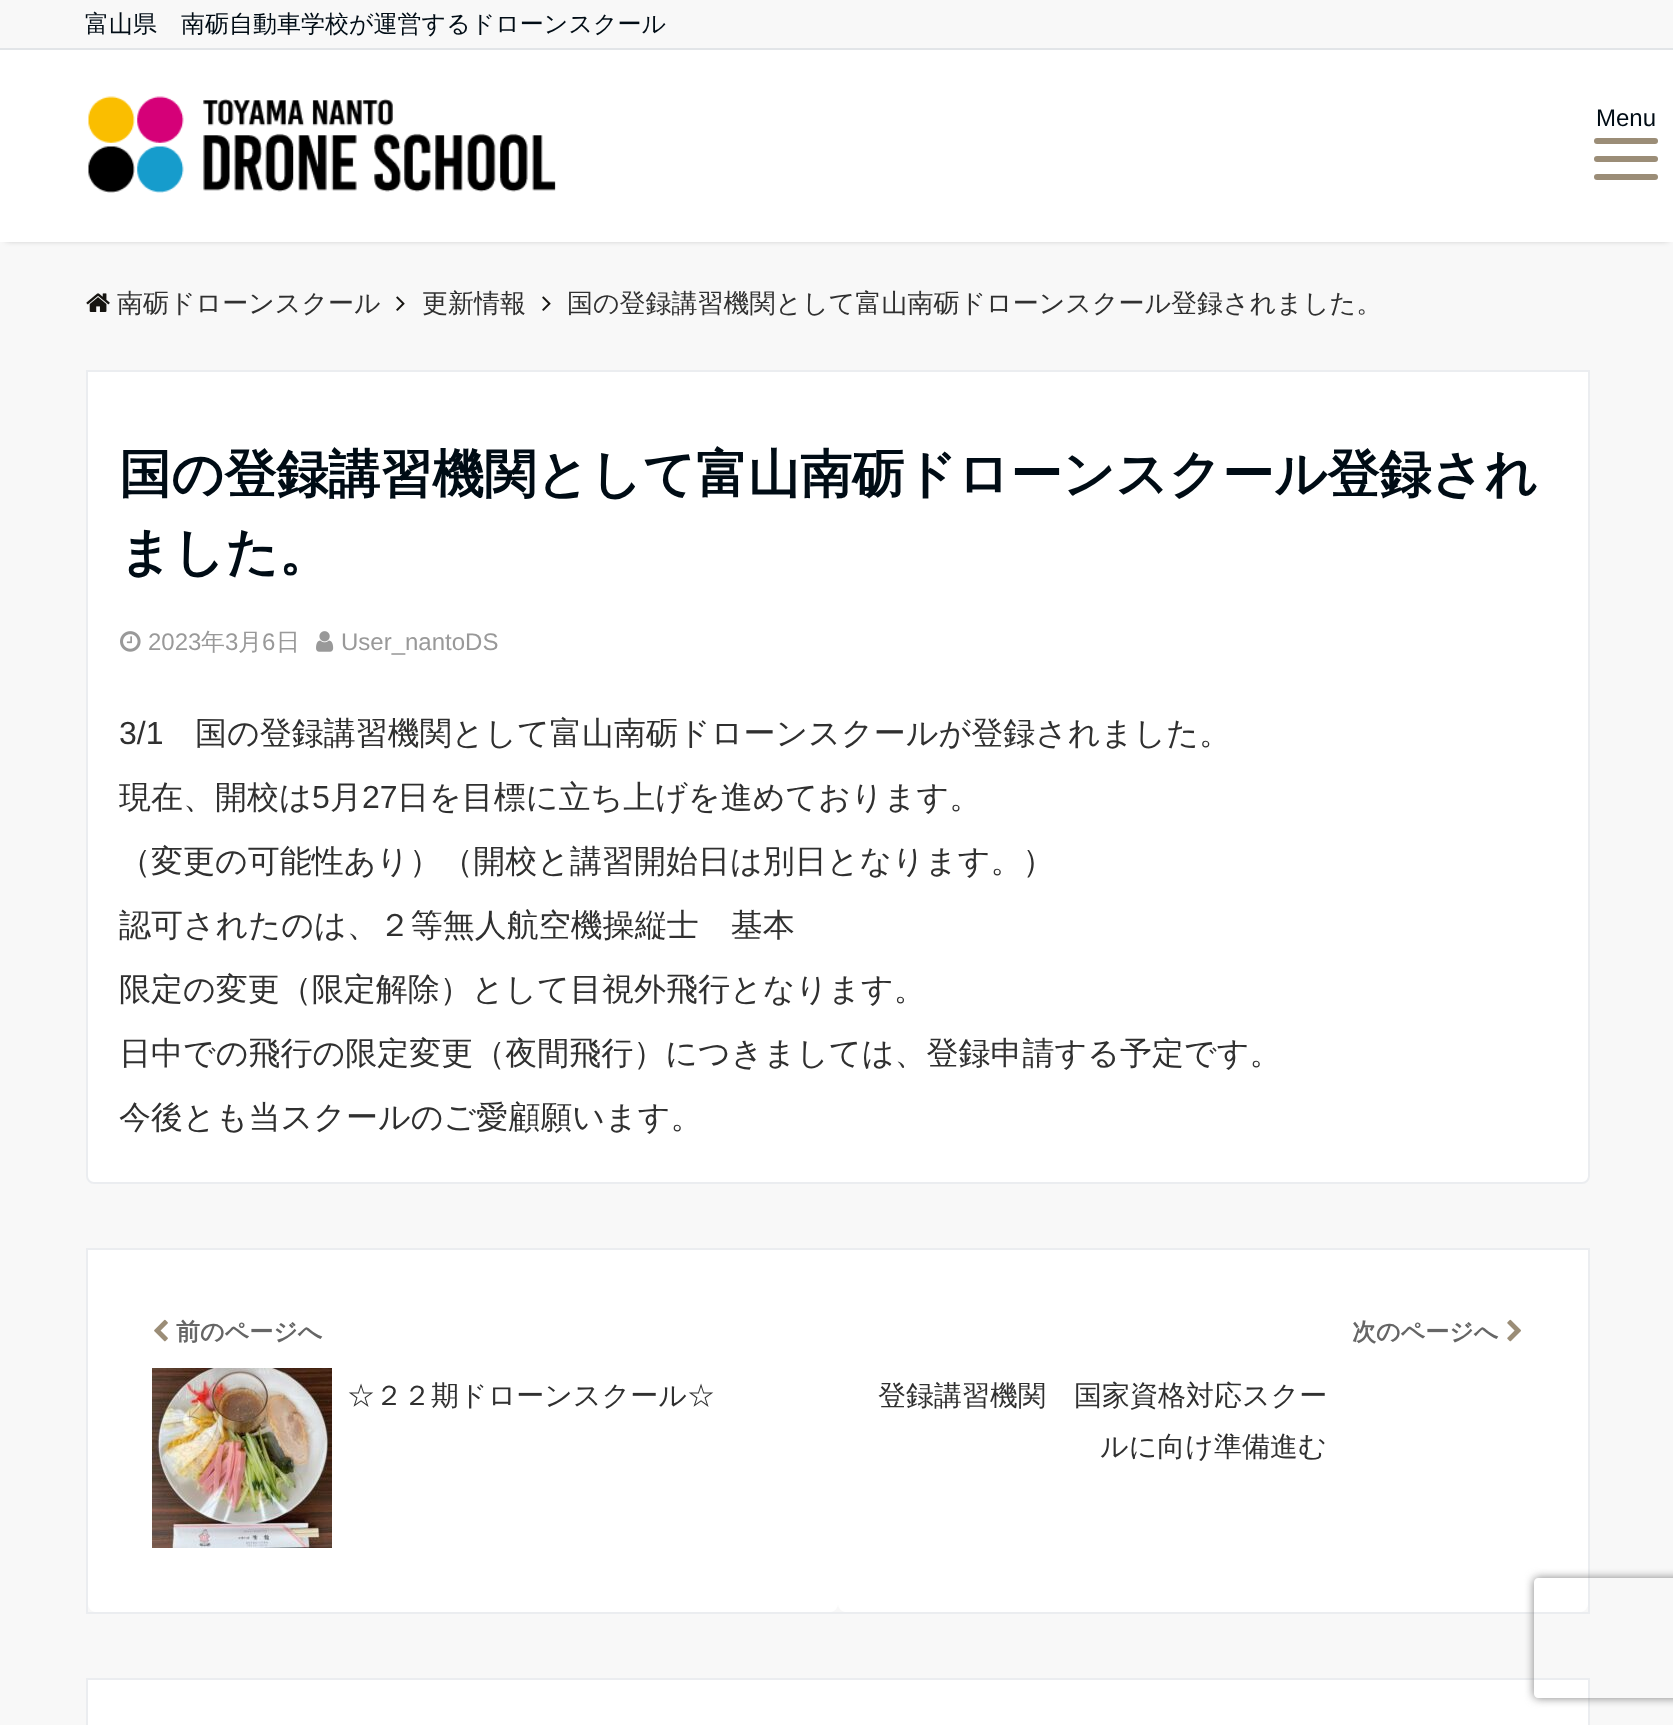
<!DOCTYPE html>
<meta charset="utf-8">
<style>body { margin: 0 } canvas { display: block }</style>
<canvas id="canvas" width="1673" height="1725"></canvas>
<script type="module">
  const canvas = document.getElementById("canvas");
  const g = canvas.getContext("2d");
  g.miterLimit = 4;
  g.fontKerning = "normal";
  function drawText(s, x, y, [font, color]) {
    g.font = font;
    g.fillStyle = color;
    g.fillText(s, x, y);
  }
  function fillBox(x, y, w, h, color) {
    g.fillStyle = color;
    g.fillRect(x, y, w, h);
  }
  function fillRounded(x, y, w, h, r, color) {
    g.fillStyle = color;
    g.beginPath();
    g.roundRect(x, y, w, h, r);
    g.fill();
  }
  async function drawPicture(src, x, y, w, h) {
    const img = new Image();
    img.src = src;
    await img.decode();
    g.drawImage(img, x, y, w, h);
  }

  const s1 = ["500 24px WenQuanYi Zen Hei", "#000C15"];
  const s2 = ["24px Liberation Sans", "#000C15"];
  const s3 = ["500 26px WenQuanYi Zen Hei", "#303030"];
  const s4 = ["bold 52px WenQuanYi Zen Hei", "#000C15"];
  const s5 = ["24px Liberation Sans", "#999999"];
  const s6 = ["500 24px WenQuanYi Zen Hei", "#999999"];
  const s7 = ["32px Liberation Sans", "#303030"];
  const s8 = ["500 32px WenQuanYi Zen Hei", "#303030"];
  const s9 = ["bold 24px WenQuanYi Zen Hei", "#666666"];
  const s10 = ["500 28px WenQuanYi Zen Hei", "#303030"];

  fillBox(0, 0, 1673, 1725, "#F8F8F8");
  fillBox(0, 48, 1673, 2, "#E2E5E8");
  drawText("富山県　南砺自動車学校が運営するドローンスクール", 85, 32, s1);
  g.fillStyle = "rgba(0, 0, 0, 0.3)";
  g.filter = "blur(3px)";
  g.beginPath();
  g.rect(6, 60, 1662, 180);
  g.fill();
  g.filter = "none";
  fillBox(0, 50, 1673, 192, "#FFFFFF");
  await drawPicture("pic1.png", 88, 96, 468, 97);
  drawText("Menu", 1596, 126, s2);
  fillRounded(1594, 138, 64, 6, 3, "#9B8D77");
  fillRounded(1594, 156, 64, 6, 3, "#9B8D77");
  fillRounded(1594, 174, 64, 6, 3, "#9B8D77");
  await drawPicture("pic2.png", 86, 293, 24, 19);
  drawText("南砺ドローンスクール", 117, 312, s3);
  await drawPicture("pic3.png", 396, 296, 9, 15);
  drawText("更新情報", 422, 312, s3);
  await drawPicture("pic3.png", 542, 296, 9, 15);
  drawText("国の登録講習機関として富山南砺ドローンスクール登録されました。", 567, 312, s3);
  g.fillStyle = "#FFFFFF";
  g.beginPath();
  g.roundRect(87, 371, 1502, 812, [0, 0, 7, 7]);
  g.fill();
  g.strokeStyle = "#EBEDF0";
  g.lineWidth = 2;
  g.stroke();
  drawText("国の登録講習機関として富山南砺ドローンスクール登録され", 119, 492, s4);
  drawText("ました。", 119, 570, s4);
  await drawPicture("pic4.png", 120, 631, 21, 21);
  drawText("2023", 148, 650, s5);
  drawText("年", 201, 650, s6);
  drawText("3", 225, 650, s5);
  drawText("月", 238, 650, s6);
  drawText("6", 262, 650, s5);
  drawText("日", 276, 650, s6);
  await drawPicture("pic5.png", 316, 631, 18, 21);
  drawText("User_nantoDS", 341, 650, s5);
  drawText("3/1", 119, 744, s7);
  drawText("国の登録講習機関として富山南砺ドローンスクールが登録されました。", 195, 744, s8);
  drawText("現在、開校は", 119, 808, s8);
  drawText("5", 312, 808, s7);
  drawText("月", 330, 808, s8);
  drawText("27", 362, 808, s7);
  drawText("日を目標に立ち上げを進めております。", 397, 808, s8);
  drawText("（変更の可能性あり）（開校と講習開始日は別日となります。）", 119, 872, s8);
  drawText("認可されたのは、２等無人航空機操縦士　基本", 119, 936, s8);
  drawText("限定の変更（限定解除）として目視外飛行となります。", 119, 1000, s8);
  drawText("日中での飛行の限定変更（夜間飛行）につきましては、登録申請する予定です。", 119, 1064, s8);
  drawText("今後とも当スクールのご愛顧願います。", 119, 1128, s8);
  g.strokeRect(87, 1249, 1502, 364);
  g.fillStyle = "#FFFFFF";
  g.beginPath();
  g.roundRect(88, 1250, 750, 362, [0, 0, 8, 8]);
  g.fill();
  await drawPicture("pic6.png", 154, 1319, 14, 23);
  drawText("前のページへ", 176, 1340, s9);
  await drawPicture("pic7.png", 152, 1368, 180, 180);
  drawText("☆２２期ドローンスクール☆", 347, 1405, s10);
  g.fillStyle = "#FFFFFF";
  g.beginPath();
  g.roundRect(838, 1250, 750, 362, [0, 0, 8, 8]);
  g.fill();
  drawText("次のページへ", 1352, 1340, s9);
  await drawPicture("pic8.png", 1507, 1319, 14, 23);
  drawText("登録講習機関　国家資格対応スクー", 878, 1405, s10);
  drawText("ルに向け準備進む", 1100, 1456, s10);
  g.fillStyle = "#FFFFFF";
  g.beginPath();
  g.rect(87, 1679, 1502, 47);
  g.fill();
  g.stroke();
  g.save();
  g.beginPath();
  g.moveTo(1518, 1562);
  g.lineTo(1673, 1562);
  g.lineTo(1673, 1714);
  g.lineTo(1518, 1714);
  g.closePath();
  g.moveTo(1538, 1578);
  g.lineTo(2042, 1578);
  g.bezierCurveTo(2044, 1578, 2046, 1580, 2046, 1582);
  g.lineTo(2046, 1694);
  g.bezierCurveTo(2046, 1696, 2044, 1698, 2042, 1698);
  g.lineTo(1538, 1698);
  g.bezierCurveTo(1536, 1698, 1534, 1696, 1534, 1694);
  g.lineTo(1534, 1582);
  g.bezierCurveTo(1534, 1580, 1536, 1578, 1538, 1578);
  g.closePath();
  g.clip("evenodd");
  g.fillStyle = "#808080";
  g.filter = "blur(5px)";
  g.beginPath();
  g.roundRect(1534, 1578, 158, 120, 4);
  g.fill();
  g.filter = "none";
  g.restore();
</script>
